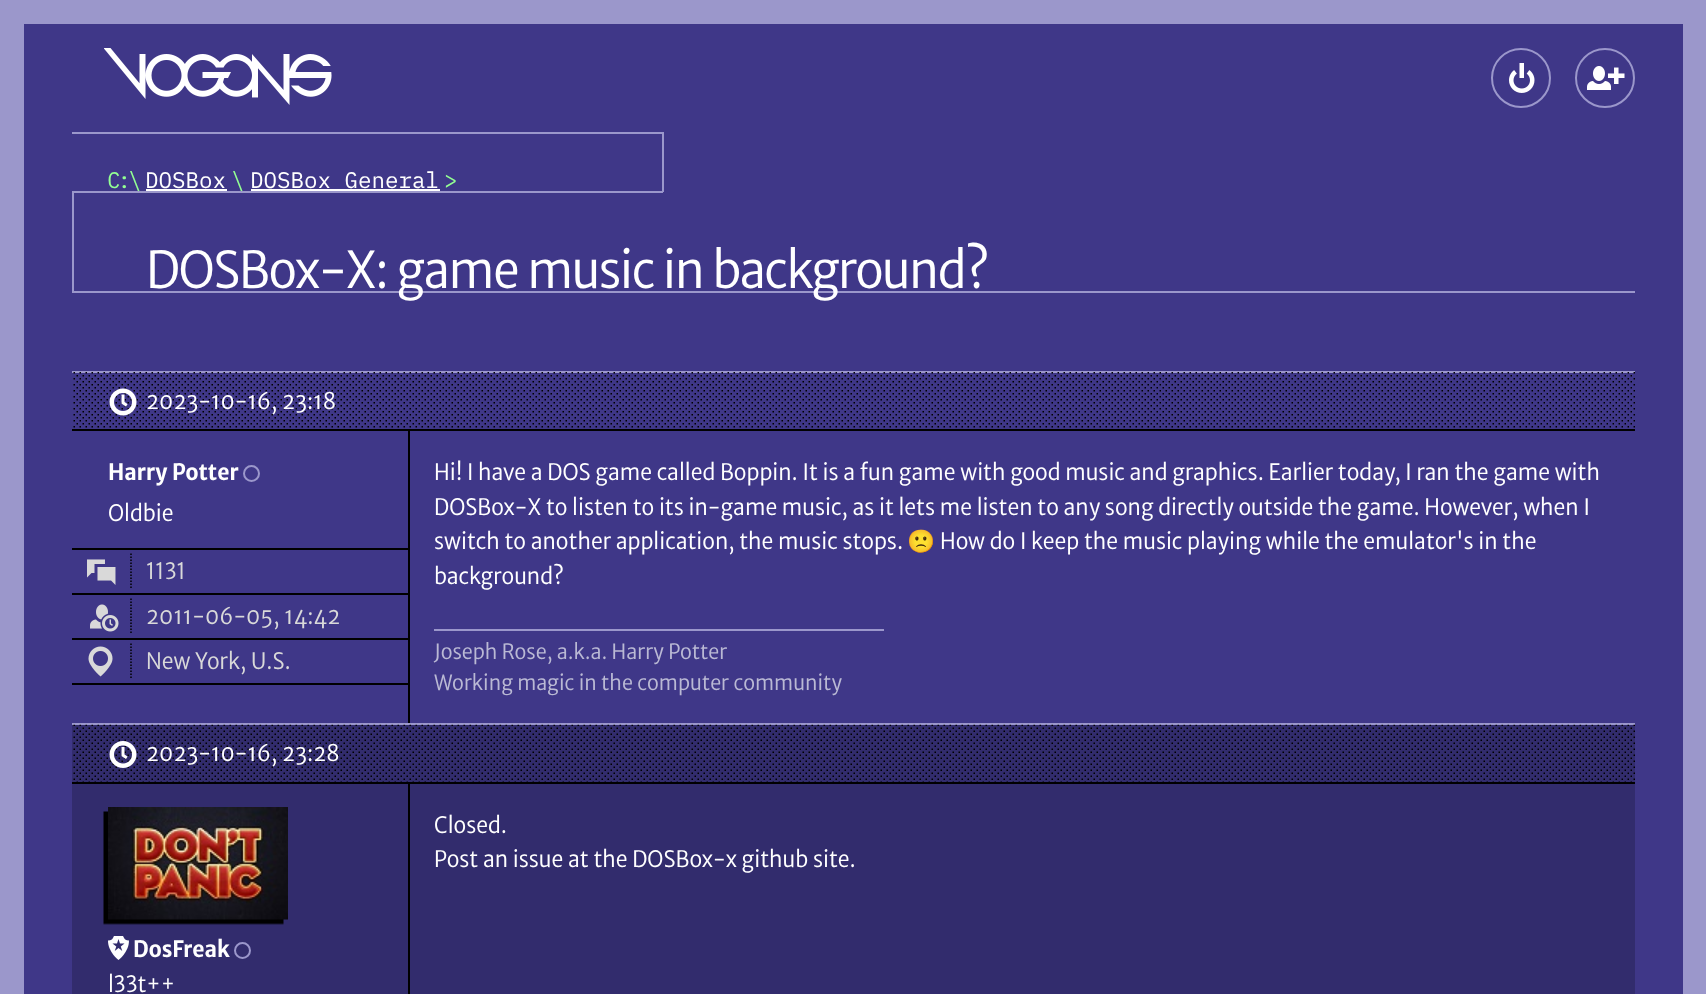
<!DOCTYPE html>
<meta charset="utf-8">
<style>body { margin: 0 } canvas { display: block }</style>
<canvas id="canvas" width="1706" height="994"></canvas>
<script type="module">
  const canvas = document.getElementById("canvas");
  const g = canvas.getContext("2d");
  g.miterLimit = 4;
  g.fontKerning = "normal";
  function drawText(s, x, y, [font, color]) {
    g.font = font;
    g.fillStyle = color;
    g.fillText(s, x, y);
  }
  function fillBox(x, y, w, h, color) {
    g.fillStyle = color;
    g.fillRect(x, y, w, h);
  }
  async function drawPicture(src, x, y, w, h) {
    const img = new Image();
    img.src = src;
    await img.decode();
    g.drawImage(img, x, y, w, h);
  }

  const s1 = ["22.5px IBM Plex Mono", "#93FF93"];
  const s2 = ["22.5px IBM Plex Mono", "#FFFFFF"];
  const s3 = ["50.6px Merriweather Sans", "#FFFFFF"];
  const s4 = ["22.5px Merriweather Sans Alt", "#FFFFFF"];
  const s5 = ["bold 22.5px Merriweather Sans", "#FFFFFF"];
  const s6 = ["22.5px Merriweather Sans", "#FFFFFF"];
  const s7 = ["22.5px Merriweather Sans", "#D9D9D9"];
  const s8 = ["22.5px Merriweather Sans Alt", "#D9D9D9"];
  const s9 = ["22.5px Noto Color Emoji", "#FFFFFF"];
  const s10 = ["21px Merriweather Sans", "#BAB9D4"];

  fillBox(0, 0, 1706, 994, "#3F3788");
  g.strokeStyle = "#9B97CB";
  g.lineWidth = 24;
  g.strokeRect(12, 12, 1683, 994);
  await drawPicture("pic1.png", 104, 48, 228, 57);
  g.beginPath();
  g.arc(1521, 78, 29, 0, Math.PI * 2);
  g.lineWidth = 2;
  g.stroke();
  await drawPicture("pic2.png", 1509, 63, 26, 30);
  g.beginPath();
  g.arc(1605, 78, 29, 0, Math.PI * 2);
  g.stroke();
  await drawPicture("pic3.png", 1587, 66, 38, 24);
  fillBox(72, 132, 591, 2, "#9B97CB");
  fillBox(662, 132, 2, 60, "#9B97CB");
  fillBox(72, 191, 591, 2, "#9B97CB");
  g.letterSpacing = "-3px";
  drawText("C:\\", 107, 188, s1);
  g.letterSpacing = "0px";
  drawText("DOSBox", 145, 188, s2);
  fillBox(146, 189, 81, 2, "#FFFFFF");
  drawText("\\", 231, 188, s1);
  drawText("DOSBox General", 250, 188, s2);
  fillBox(251, 189, 189, 2, "#FFFFFF");
  drawText(">", 444, 188, s1);
  fillBox(72, 291, 1563, 2, "#9B97CB");
  fillBox(72, 192, 2, 101, "#9B97CB");
  g.letterSpacing = "-1.5px";
  drawText("DOSBox-X: game music in background?", 146, 288, s3);
  fillBox(72, 371, 1563, 2, "#9B97CB");
  await drawPicture("pic4.png", 73, 372, 1562, 56);
  fillBox(72, 429, 1563, 2, "#000000");
  await drawPicture("pic5.png", 109, 388, 28, 28);
  g.letterSpacing = "0px";
  drawText("2023-10-16, 23:18", 146, 409, s4);
  drawText("Harry Potter", 108, 480, s5);
  g.beginPath();
  g.arc(251.5, 473.5, 7.5, 0, Math.PI * 2);
  g.stroke();
  drawText("Oldbie", 108, 521, s6);
  fillBox(72, 548, 336, 2, "#000000");
  fillBox(72, 593, 336, 2, "#000000");
  await drawPicture("pic6.png", 87, 559, 29, 26);
  g.beginPath();
  g.moveTo(131, 553.5);
  g.lineTo(131, 588);
  g.strokeStyle = "#000000";
  g.lineWidth = 1.5;
  g.setLineDash([1.5, 1.5]);
  g.stroke();
  drawText("1131", 146, 579, s7);
  fillBox(72, 638, 336, 2, "#000000");
  await drawPicture("pic7.png", 90, 604, 29, 28);
  g.beginPath();
  g.moveTo(131, 598.5);
  g.lineTo(131, 633);
  g.stroke();
  drawText("2011-06-05, 14:42", 146, 624, s8);
  fillBox(72, 683, 336, 2, "#000000");
  await drawPicture("pic8.png", 88, 646, 25, 31);
  g.beginPath();
  g.moveTo(131, 643.5);
  g.lineTo(131, 678);
  g.stroke();
  drawText("New York, U.S.", 146, 669, s7);
  fillBox(408, 431, 2, 292, "#000000");
  drawText("Hi! I have a DOS game called Boppin. It is a fun game with good music and graphics. Earlier today, I ran the game with", 434, 480, s6);
  drawText("DOSBox-X to listen to its in-game music, as it lets me listen to any song directly outside the game. However, when I", 434, 515, s6);
  drawText("switch to another application, the music stops.", 434, 549, s6);
  drawText("🙁", 907, 549, s9);
  drawText("How do I keep the music playing while the emulator's in the", 940, 549, s6);
  drawText("background?", 434, 584, s6);
  fillBox(434, 629, 450, 2, "#9B97CB");
  drawText("Joseph Rose, a.k.a. Harry Potter", 434, 659, s10);
  drawText("Working magic in the computer community", 434, 690, s10);
  fillBox(72, 725, 1563, 269, "#322C6D");
  fillBox(72, 723, 1563, 2, "#9B97CB");
  await drawPicture("pic9.png", 73, 724, 1562, 58);
  fillBox(72, 782, 1563, 2, "#000000");
  await drawPicture("pic10.png", 109, 741, 28, 27);
  drawText("2023-10-16, 23:28", 146, 761, s4);
  fillBox(408, 783, 2, 211, "#000000");
  drawText("Closed.", 434, 833, s6);
  drawText("Post an issue at the DOSBox-x github site.", 434, 867, s6);
  await drawPicture("pic11.png", 103, 807, 185, 118);
  await drawPicture("pic12.png", 108, 936, 21, 24);
  drawText("DosFreak", 133, 957, s5);
  g.beginPath();
  g.arc(242.5, 950.5, 7.5, 0, Math.PI * 2);
  g.strokeStyle = "#9B97CB";
  g.lineWidth = 2;
  g.setLineDash([]);
  g.stroke();
  drawText("l33t++", 108, 992, s6);
</script>
